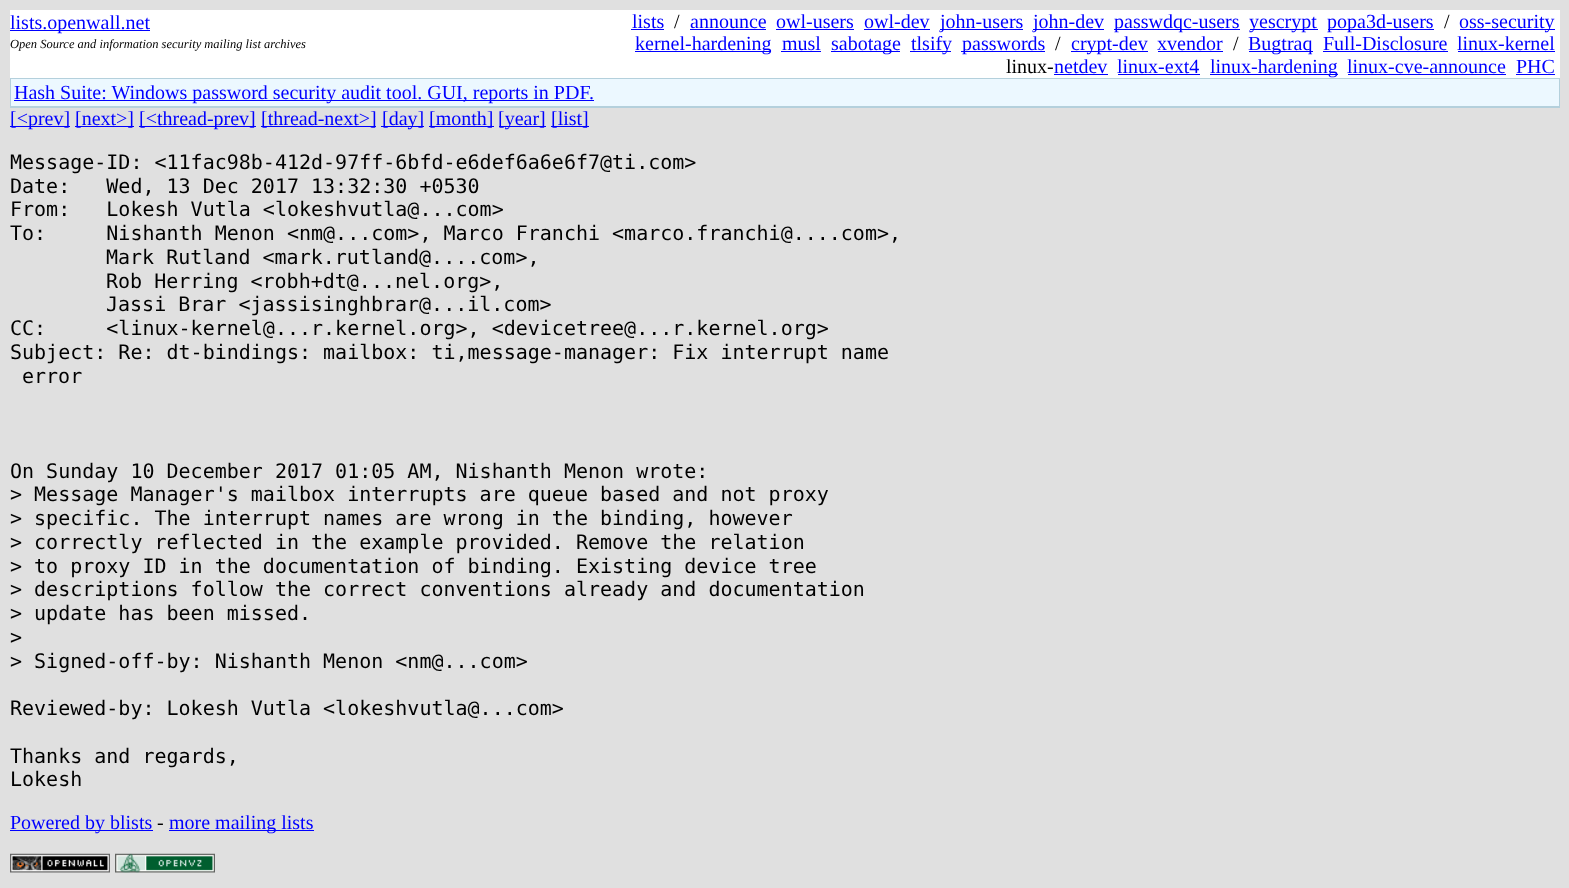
<!DOCTYPE html>
<meta charset="utf-8">
<style>body { margin: 0 } canvas { display: block }</style>
<canvas id="canvas" width="1569" height="888"></canvas>
<script type="module">
  const canvas = document.getElementById("canvas");
  const g = canvas.getContext("2d");
  g.miterLimit = 4;
  g.fontKerning = "normal";
  function drawText(s, x, y, [font, color]) {
    g.font = font;
    g.fillStyle = color;
    g.fillText(s, x, y);
  }
  function fillBox(x, y, w, h, color) {
    g.fillStyle = color;
    g.fillRect(x, y, w, h);
  }
  async function drawPicture(src, x, y, w, h) {
    const img = new Image();
    img.src = src;
    await img.decode();
    g.drawImage(img, x, y, w, h);
  }

  const s1 = ["20px Liberation Serif", "#0000FF"];
  const s2 = ["20px Liberation Serif", "#000000"];
  const s3 = ["italic 12.5px Liberation Serif", "#000000"];
  const s4 = ["20px DejaVu Sans Mono", "#000000"];

  fillBox(0, 0, 1569, 888, "#E0E0E0");
  fillBox(10, 10, 1550, 68, "#FFFFFF");
  fillBox(10, 30, 140, 1, "#0000FF");
  drawText("lists.openwall.net", 10, 29, s1);
  drawText("lists", 632, 28, s1);
  fillBox(631, 29, 33, 1, "#0000FF");
  drawText("/", 674, 28, s2);
  drawText("announce", 690, 28, s1);
  fillBox(690, 29, 76, 1, "#0000FF");
  drawText("owl-users", 776, 28, s1);
  fillBox(776, 29, 78, 1, "#0000FF");
  drawText("owl-dev", 864, 28, s1);
  fillBox(864, 29, 66, 1, "#0000FF");
  fillBox(940, 29, 83, 1, "#0000FF");
  drawText("john-users", 940, 28, s1);
  fillBox(1033, 29, 71, 1, "#0000FF");
  drawText("john-dev", 1033, 28, s1);
  fillBox(1114, 29, 126, 1, "#0000FF");
  drawText("passwdqc-users", 1114, 28, s1);
  fillBox(1250, 29, 68, 1, "#0000FF");
  drawText("yescrypt", 1249, 28, s1);
  fillBox(1328, 29, 106, 1, "#0000FF");
  drawText("popa3d-users", 1327, 28, s1);
  drawText("/", 1444, 28, s2);
  fillBox(1460, 29, 95, 1, "#0000FF");
  drawText("oss-security", 1459, 28, s1);
  fillBox(635, 51, 136, 1, "#0000FF");
  drawText("kernel-hardening", 635, 50, s1);
  drawText("musl", 782, 50, s1);
  fillBox(781, 51, 40, 1, "#0000FF");
  fillBox(831, 51, 69, 1, "#0000FF");
  drawText("sabotage", 831, 50, s1);
  fillBox(910, 51, 41, 1, "#0000FF");
  drawText("tlsify", 911, 50, s1);
  fillBox(961, 51, 84, 1, "#0000FF");
  drawText("passwords", 962, 50, s1);
  drawText("/", 1055, 50, s2);
  fillBox(1071, 51, 77, 1, "#0000FF");
  drawText("crypt-dev", 1071, 50, s1);
  drawText("xvendor", 1157, 50, s1);
  fillBox(1158, 51, 65, 1, "#0000FF");
  drawText("/", 1233, 50, s2);
  fillBox(1249, 51, 64, 1, "#0000FF");
  drawText("Bugtraq", 1248, 50, s1);
  drawText("Full-Disclosure", 1323, 50, s1);
  fillBox(1323, 51, 125, 1, "#0000FF");
  drawText("linux-kernel", 1457, 50, s1);
  fillBox(1458, 51, 97, 1, "#0000FF");
  drawText("linux-", 1006, 73, s2);
  drawText("netdev", 1054, 73, s1);
  fillBox(1054, 74, 54, 1, "#0000FF");
  drawText("linux-ext4", 1117, 73, s1);
  fillBox(1118, 74, 82, 1, "#0000FF");
  fillBox(1210, 74, 128, 1, "#0000FF");
  drawText("linux-hardening", 1210, 73, s1);
  drawText("linux-cve-announce", 1347, 73, s1);
  fillBox(1348, 74, 158, 1, "#0000FF");
  drawText("PHC", 1516, 73, s1);
  fillBox(1516, 74, 39, 1, "#0000FF");
  drawText("Open Source and information security mailing list archives", 10, 48, s3);
  fillBox(10, 78, 1550, 30, "#B4D0DC");
  fillBox(11, 79, 1548, 27, "#ECF8FF");
  fillBox(14, 100, 580, 1, "#0000FF");
  drawText("Hash Suite: Windows password security audit tool. GUI, reports in PDF.", 14, 99, s1);
  fillBox(10, 126, 60, 1, "#0000FF");
  drawText("[<prev]", 10, 125, s1);
  fillBox(75, 126, 59, 1, "#0000FF");
  drawText("[next>]", 75, 125, s1);
  fillBox(139, 126, 117, 1, "#0000FF");
  drawText("[<thread-prev]", 139, 125, s1);
  fillBox(261, 126, 115, 1, "#0000FF");
  drawText("[thread-next>]", 261, 125, s1);
  fillBox(381, 126, 43, 1, "#0000FF");
  drawText("[day]", 382, 125, s1);
  fillBox(429, 126, 65, 1, "#0000FF");
  drawText("[month]", 429, 125, s1);
  fillBox(499, 126, 47, 1, "#0000FF");
  drawText("[year]", 498, 125, s1);
  fillBox(551, 126, 38, 1, "#0000FF");
  drawText("[list]", 551, 125, s1);
  drawText("Message-ID: <11fac98b-412d-97ff-6bfd-e6def6a6e6f7@ti.com>", 10, 169, s4);
  drawText("Date:   Wed, 13 Dec 2017 13:32:30 +0530", 10, 193, s4);
  drawText("From:   Lokesh Vutla <lokeshvutla@...com>", 10, 216, s4);
  drawText("To:     Nishanth Menon <nm@...com>, Marco Franchi <marco.franchi@....com>,", 10, 240, s4);
  drawText("Mark Rutland <mark.rutland@....com>,", 106, 264, s4);
  drawText("Rob Herring <robh+dt@...nel.org>,", 106, 288, s4);
  drawText("Jassi Brar <jassisinghbrar@...il.com>", 106, 311, s4);
  drawText("CC:     <linux-kernel@...r.kernel.org>, <devicetree@...r.kernel.org>", 10, 335, s4);
  drawText("Subject: Re: dt-bindings: mailbox: ti,message-manager: Fix interrupt name", 10, 359, s4);
  drawText("error", 22, 383, s4);
  drawText("On Sunday 10 December 2017 01:05 AM, Nishanth Menon wrote:", 10, 478, s4);
  drawText("> Message Manager's mailbox interrupts are queue based and not proxy", 10, 501, s4);
  drawText("> specific. The interrupt names are wrong in the binding, however", 10, 525, s4);
  drawText("> correctly reflected in the example provided. Remove the relation", 10, 549, s4);
  drawText("> to proxy ID in the documentation of binding. Existing device tree", 10, 573, s4);
  drawText("> descriptions follow the correct conventions already and documentation", 10, 596, s4);
  drawText("> update has been missed.", 10, 620, s4);
  drawText(">", 10, 644, s4);
  drawText("> Signed-off-by: Nishanth Menon <nm@...com>", 10, 668, s4);
  drawText("Reviewed-by: Lokesh Vutla <lokeshvutla@...com>", 10, 715, s4);
  drawText("Thanks and regards,", 10, 763, s4);
  drawText("Lokesh", 10, 786, s4);
  fillBox(10, 830, 143, 1, "#0000FF");
  drawText("Powered by blists", 10, 829, s1);
  drawText("-", 157, 829, s2);
  fillBox(169, 830, 145, 1, "#0000FF");
  drawText("more mailing lists", 169, 829, s1);
  await drawPicture("pic1.png", 10, 853, 100, 20);
  await drawPicture("pic2.png", 115, 853, 100, 20);
</script>
